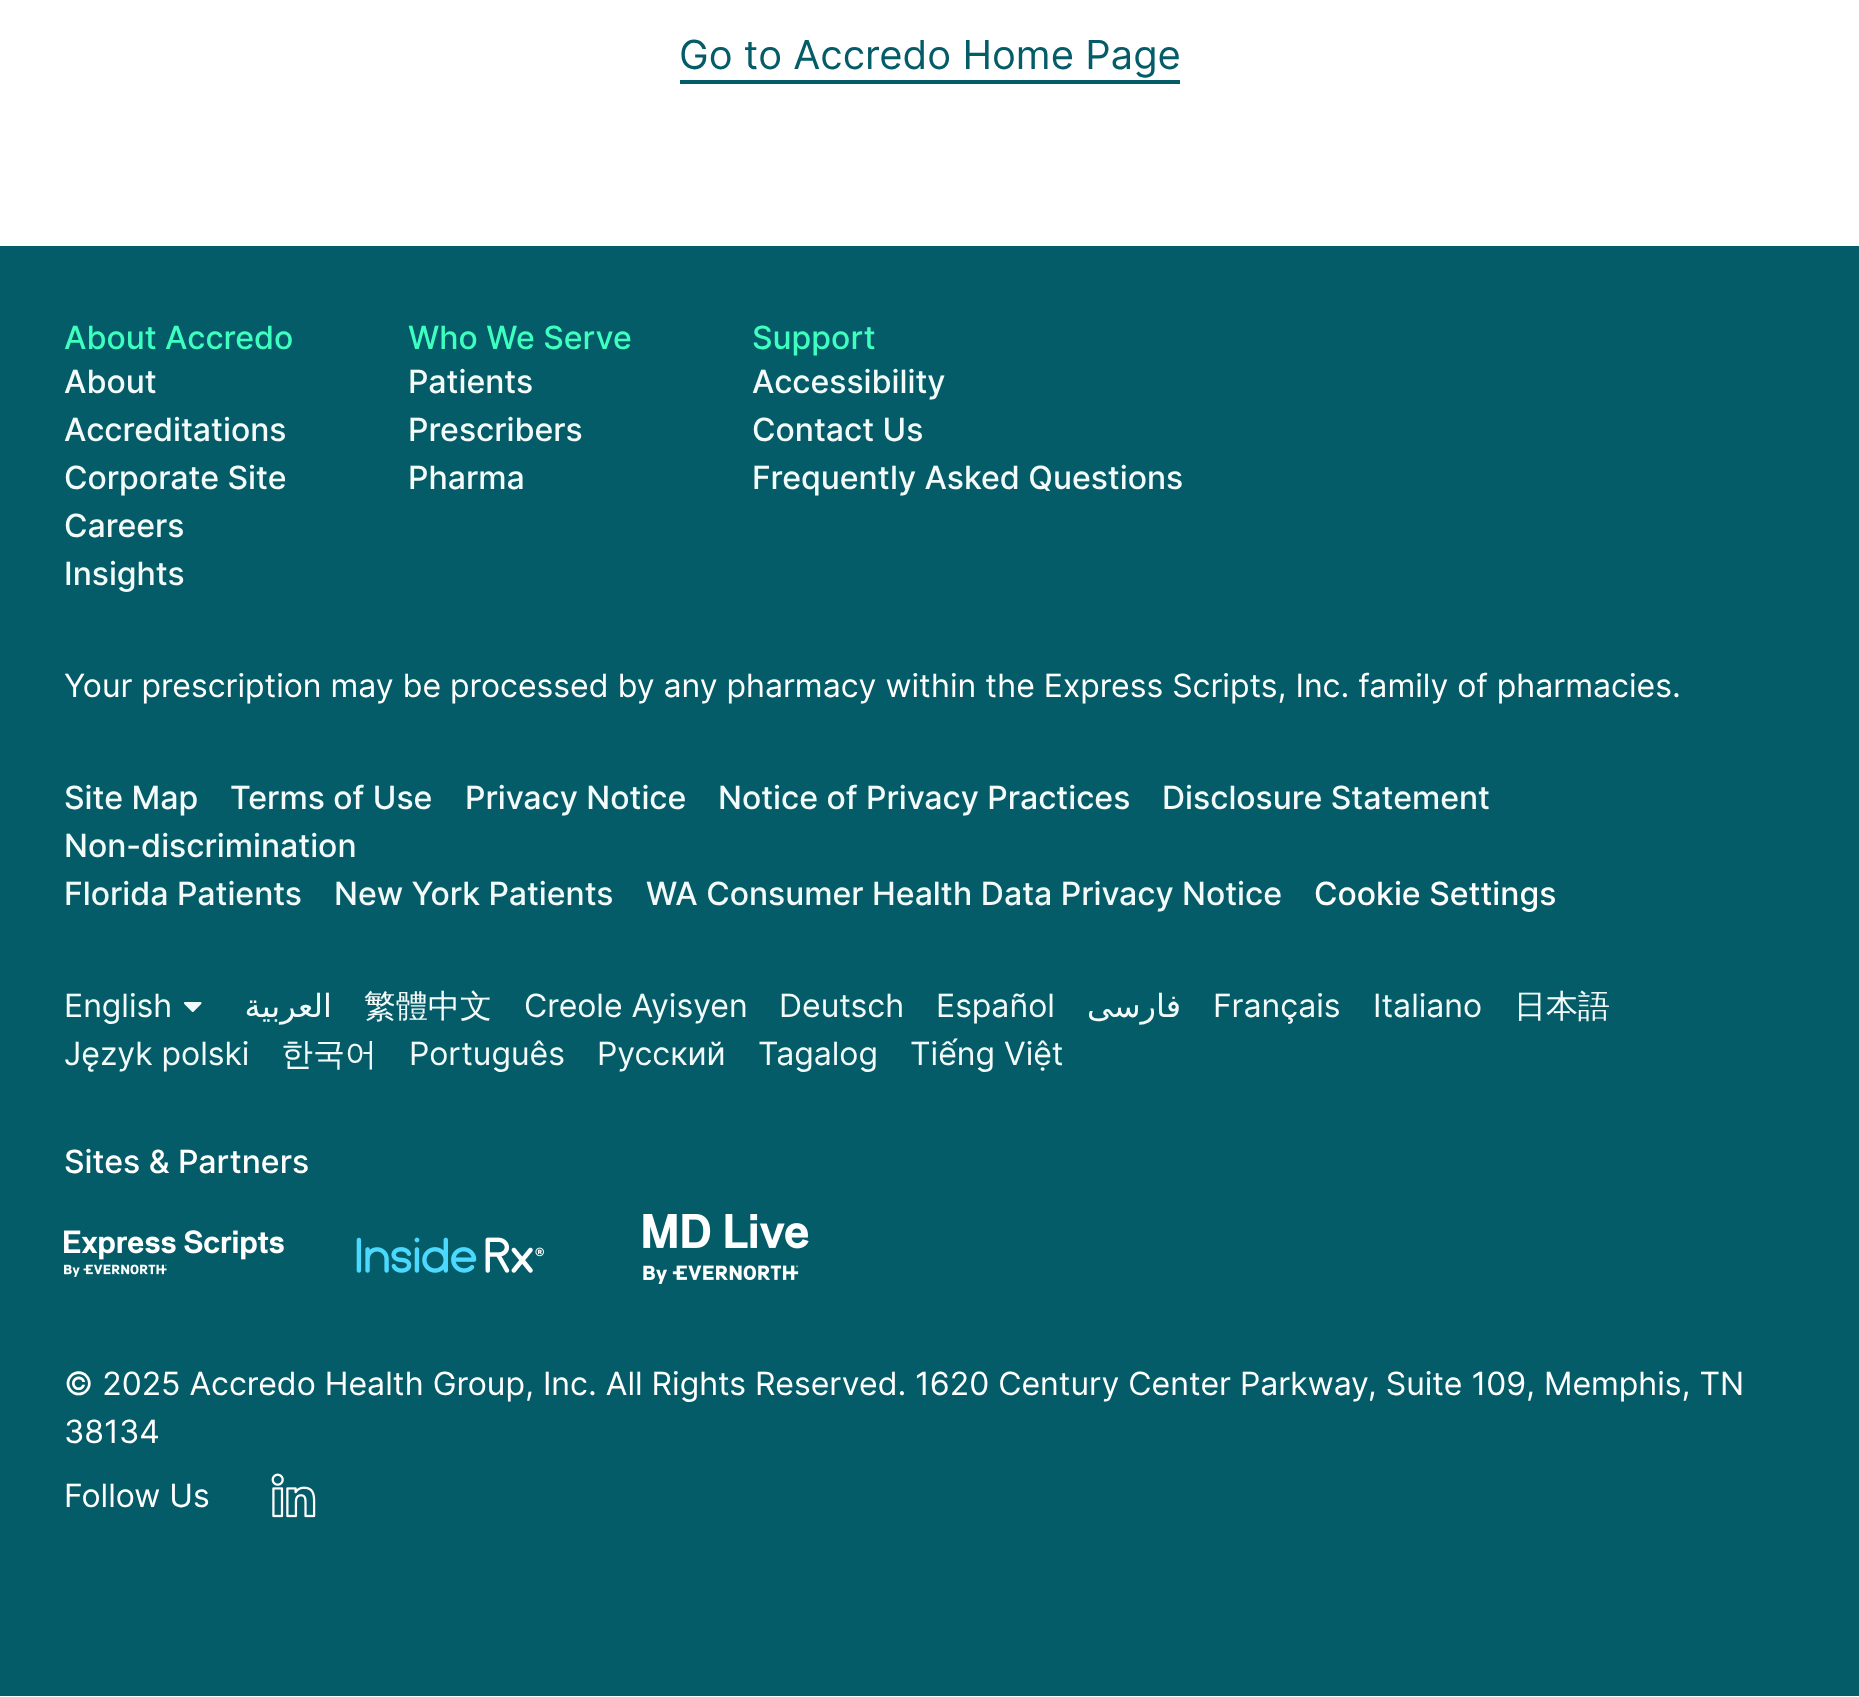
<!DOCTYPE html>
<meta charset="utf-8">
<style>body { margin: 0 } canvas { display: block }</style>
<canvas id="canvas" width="1859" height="1697"></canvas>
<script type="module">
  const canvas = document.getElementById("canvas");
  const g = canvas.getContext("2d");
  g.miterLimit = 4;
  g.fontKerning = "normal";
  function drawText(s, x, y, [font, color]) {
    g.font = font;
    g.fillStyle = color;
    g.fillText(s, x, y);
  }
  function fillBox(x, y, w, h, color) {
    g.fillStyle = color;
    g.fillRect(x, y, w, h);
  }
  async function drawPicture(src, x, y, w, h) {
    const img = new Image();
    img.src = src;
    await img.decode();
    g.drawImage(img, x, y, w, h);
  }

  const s1 = ["40px Inter", "#035C67"];
  const s2 = ["500 32px Inter", "#3EFFC0"];
  const s3 = ["500 32px Inter", "#F3FAFA"];
  const s4 = ["32px Inter", "#FFFFFF"];
  const s5 = ["500 32px Inter", "#FFFFFF"];
  const s6 = ["32px Inter", "#F3FAFA"];
  const s7 = ["32px DejaVu Sans", "#F3FAFA"];
  const s8 = ["500 32px WenQuanYi Zen Hei", "#F3FAFA"];

  fillBox(0, 0, 1859, 1697, "#FFFFFF");
  drawText("Go to Accredo Home Page", 679, 69, s1);
  fillBox(680, 80, 500, 4, "#035C67");
  fillBox(0, 246, 1859, 1450, "#035C67");
  drawText("About Accredo", 64, 349, s2);
  drawText("About", 64, 393, s3);
  drawText("Accreditations", 64, 441, s3);
  drawText("Corporate Site", 64, 489, s3);
  drawText("Careers", 64, 537, s3);
  drawText("Insights", 64, 585, s3);
  drawText("Who We Serve", 408, 349, s2);
  drawText("Patients", 408, 393, s3);
  drawText("Prescribers", 408, 441, s3);
  drawText("Pharma", 408, 489, s3);
  drawText("Support", 752, 349, s2);
  drawText("Accessibility", 752, 393, s3);
  drawText("Contact Us", 752, 441, s3);
  drawText("Frequently Asked Questions", 752, 489, s3);
  drawText("Your prescription may be processed by any pharmacy within the Express Scripts, Inc. family of pharmacies.", 64, 697, s4);
  drawText("Site Map", 64, 809, s3);
  drawText("Terms of Use", 230, 809, s3);
  drawText("Privacy Notice", 465, 809, s3);
  drawText("Notice of Privacy Practices", 718, 809, s3);
  drawText("Disclosure Statement", 1162, 809, s3);
  drawText("Non-discrimination", 64, 857, s3);
  drawText("Florida Patients", 64, 905, s3);
  drawText("New York Patients", 334, 905, s3);
  drawText("WA Consumer Health Data Privacy Notice", 646, 905, s3);
  drawText("Cookie Settings", 1314, 905, s5);
  drawText("English", 64, 1017, s6);
  await drawPicture("pic1.png", 184, 1002, 18, 10);
  g.direction = "rtl";
  drawText("العربية", 332, 1017, s7);
  g.direction = "ltr";
  drawText("繁體中文", 364, 1017, s8);
  drawText("Creole Ayisyen", 524, 1017, s6);
  drawText("Deutsch", 779, 1017, s6);
  drawText("Español", 936, 1017, s6);
  g.direction = "rtl";
  drawText("فارسی", 1181, 1017, s7);
  g.direction = "ltr";
  drawText("Français", 1213, 1017, s6);
  drawText("Italiano", 1373, 1017, s6);
  drawText("日本語", 1514, 1017, s8);
  drawText("Język polski", 64, 1065, s6);
  drawText("한국어", 281, 1065, s8);
  drawText("Português", 409, 1065, s6);
  drawText("Русский", 597, 1065, s6);
  drawText("Tagalog", 758, 1065, s6);
  drawText("Tiếng Việt", 910, 1065, s6);
  drawText("Sites & Partners", 64, 1173, s5);
  await drawPicture("pic2.png", 64, 1230, 220, 47);
  await drawPicture("pic3.png", 356, 1237, 188, 36);
  await drawPicture("pic4.png", 643, 1214, 166, 70);
  drawText("© 2025 Accredo Health Group, Inc. All Rights Reserved.", 64, 1395, s4);
  drawText("1620 Century Center Parkway, Suite 109", 915, 1395, s4);
  drawText(", Memphis, TN", 1526, 1395, s4);
  drawText("38134", 64, 1443, s4);
  drawText("Follow Us", 64, 1507, s4);
  await drawPicture("pic5.png", 271, 1473, 45, 45);
</script>
